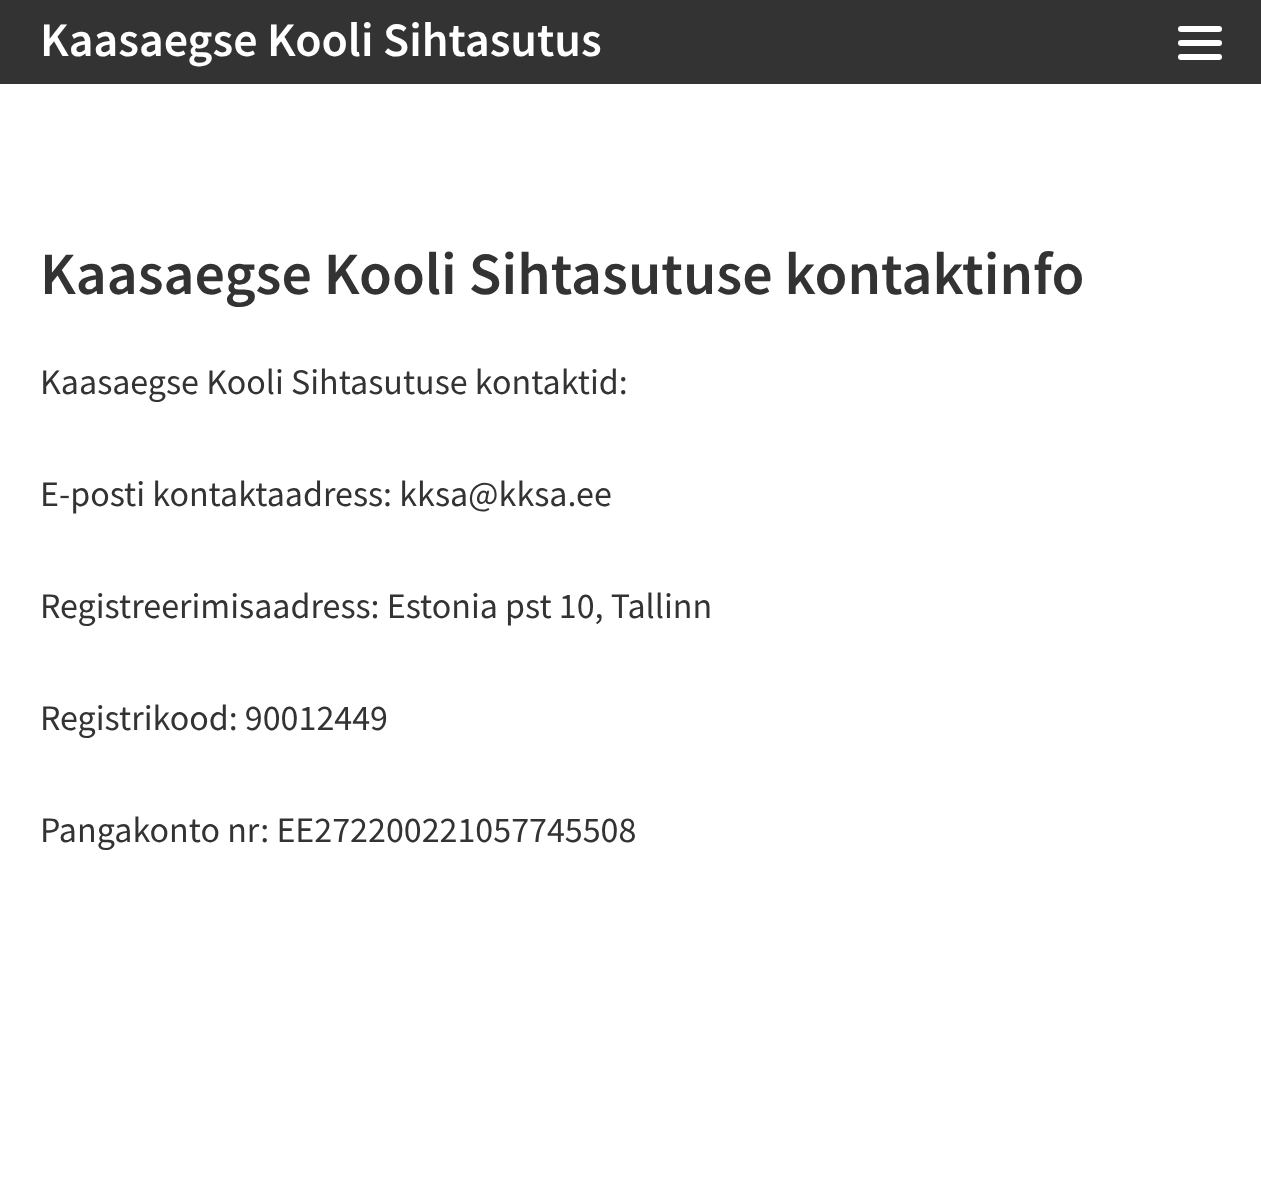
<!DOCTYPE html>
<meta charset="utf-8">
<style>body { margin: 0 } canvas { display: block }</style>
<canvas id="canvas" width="1261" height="1204"></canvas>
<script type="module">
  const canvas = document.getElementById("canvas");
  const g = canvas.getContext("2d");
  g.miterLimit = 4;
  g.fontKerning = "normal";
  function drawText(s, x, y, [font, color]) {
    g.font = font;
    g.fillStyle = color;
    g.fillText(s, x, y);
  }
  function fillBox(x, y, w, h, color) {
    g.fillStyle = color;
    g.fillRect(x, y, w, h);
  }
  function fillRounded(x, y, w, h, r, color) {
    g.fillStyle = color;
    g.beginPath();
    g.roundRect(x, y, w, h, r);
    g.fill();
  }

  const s1 = ["600 48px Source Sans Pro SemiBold", "#FFFFFF"];
  const s2 = ["600 60px Source Sans Pro SemiBold", "#333333"];
  const s3 = ["36px Source Sans Pro", "#333333"];

  fillBox(0, 0, 1261, 1204, "#FFFFFF");
  fillBox(0, 0, 1261, 84, "#333333");
  drawText("Kaasaegse Kooli Sihtasutus", 40, 56, s1);
  fillRounded(1178, 26, 44, 6, 3, "#FFFFFF");
  fillRounded(1178, 40, 44, 6, 3, "#FFFFFF");
  fillRounded(1178, 54, 44, 6, 3, "#FFFFFF");
  drawText("Kaasaegse Kooli Sihtasutuse kontaktinfo", 40, 294, s2);
  drawText("Kaasaegse Kooli Sihtasutuse kontaktid:", 40, 394, s3);
  drawText("E-posti kontaktaadress: kksa@kksa.ee", 40, 506, s3);
  drawText("Registreerimisaadress: Estonia pst 10, Tallinn", 40, 618, s3);
  drawText("Registrikood: 90012449", 40, 730, s3);
  drawText("Pangakonto nr: EE272200221057745508", 40, 842, s3);
</script>
